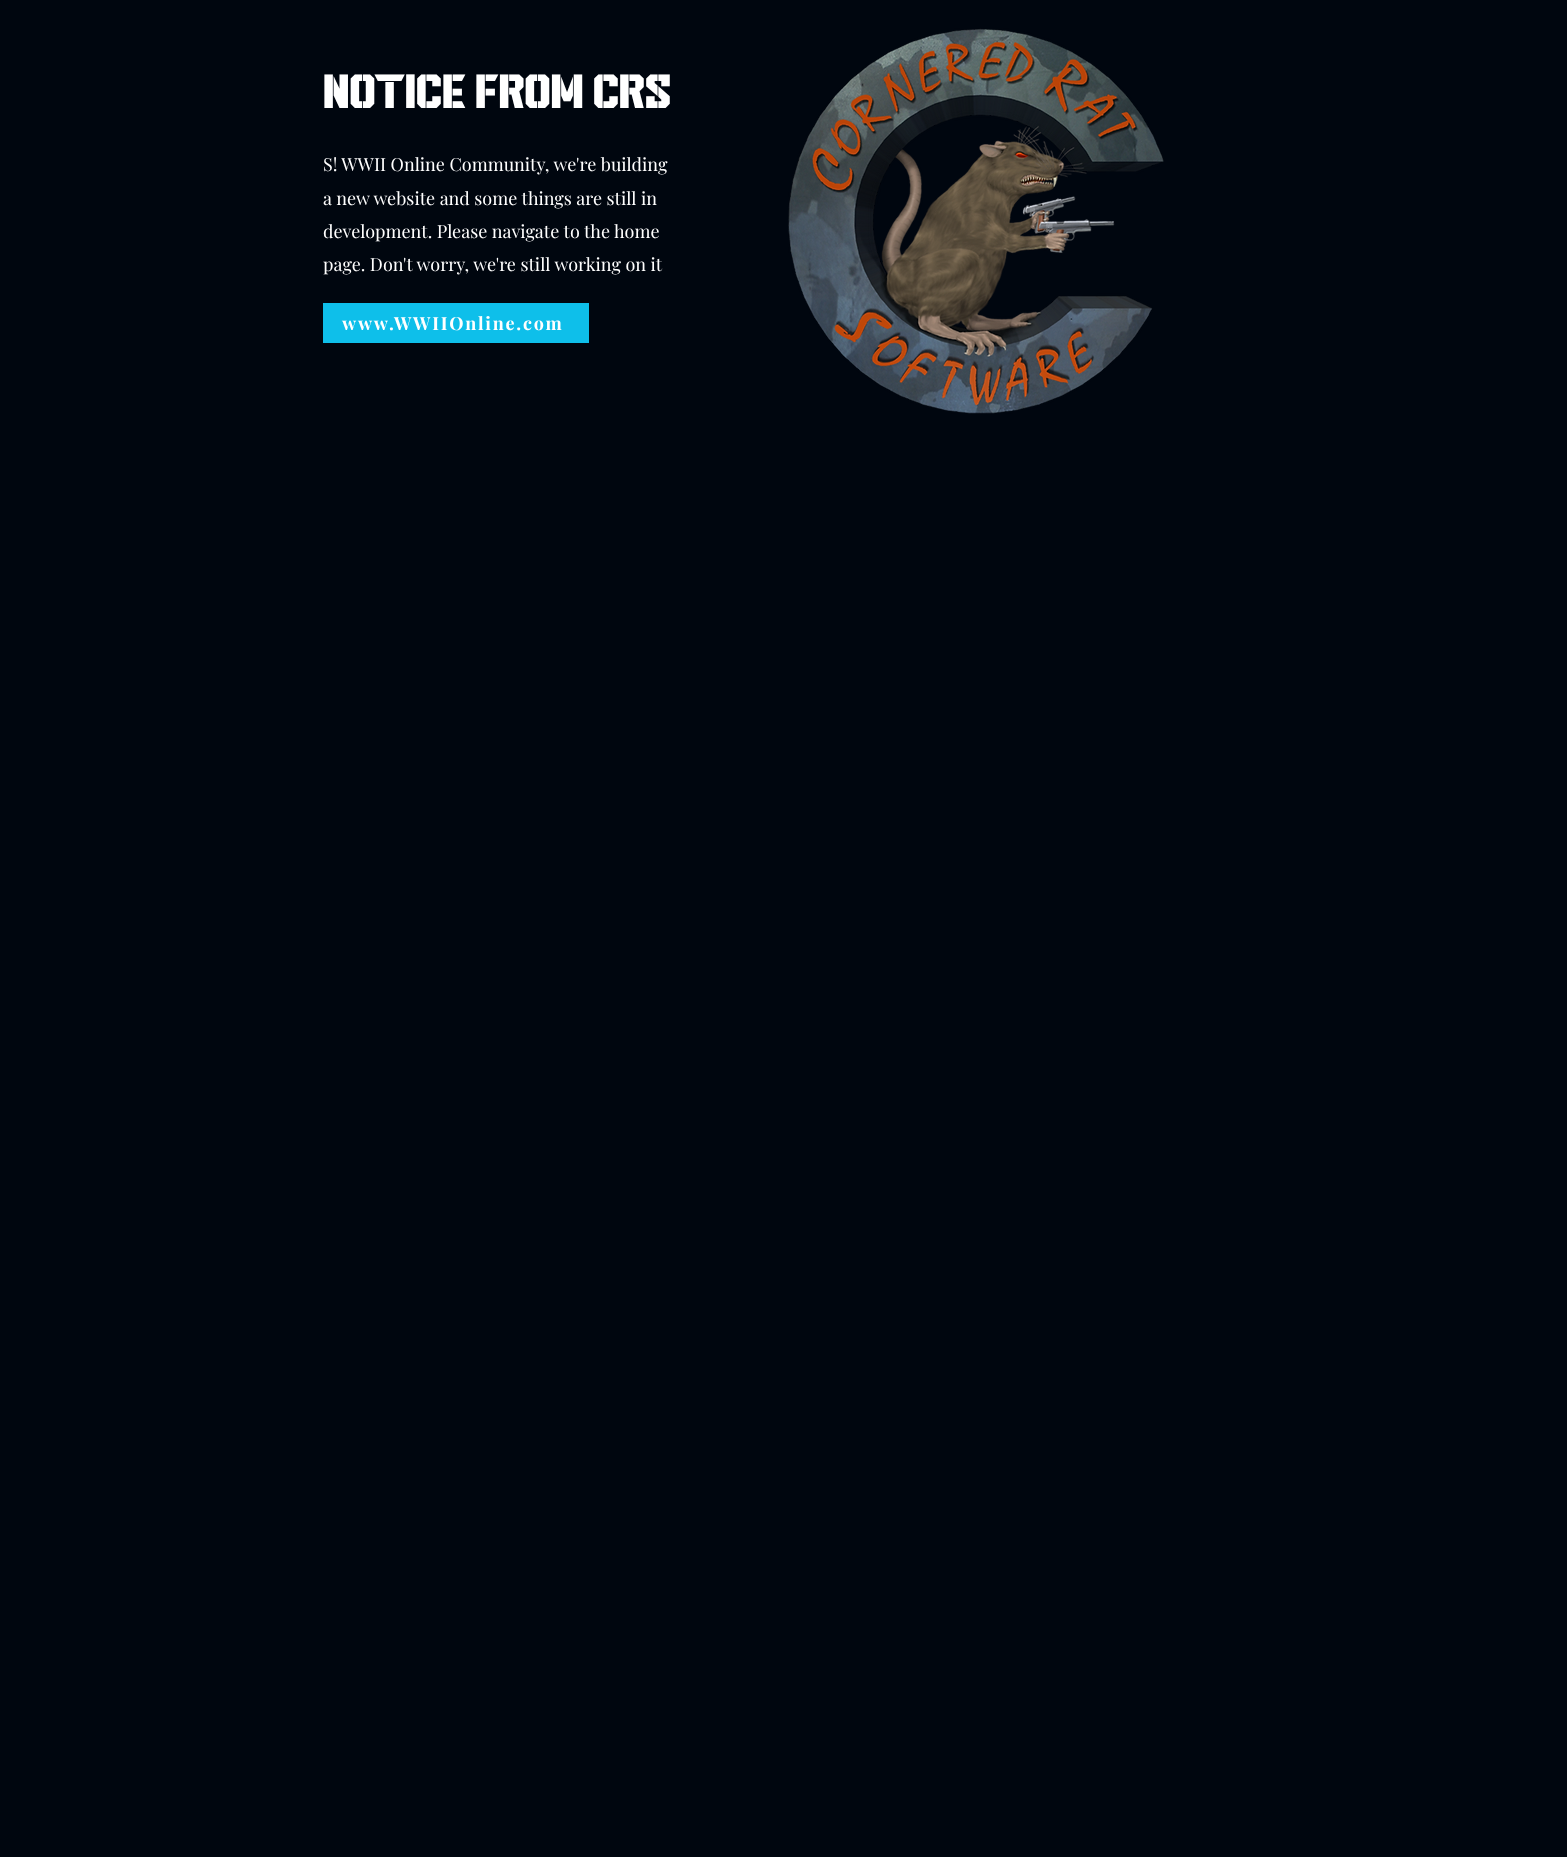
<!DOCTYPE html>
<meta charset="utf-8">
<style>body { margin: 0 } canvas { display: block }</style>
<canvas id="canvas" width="1567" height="1857"></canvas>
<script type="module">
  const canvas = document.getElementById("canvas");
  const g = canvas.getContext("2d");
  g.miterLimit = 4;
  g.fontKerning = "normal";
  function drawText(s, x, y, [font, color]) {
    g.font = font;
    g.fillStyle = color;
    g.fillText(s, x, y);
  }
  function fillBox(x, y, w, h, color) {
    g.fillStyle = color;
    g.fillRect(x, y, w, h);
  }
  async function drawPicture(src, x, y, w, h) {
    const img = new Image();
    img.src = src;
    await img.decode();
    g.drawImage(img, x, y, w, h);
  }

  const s1 = ["48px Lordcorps", "#FFFFFF"];
  const s2 = ["18px Playfair Display", "#FFFFFF"];
  const s3 = ["bold 18px Playfair Display", "#FFFFFF"];

  fillBox(0, 0, 1567, 1857, "#00060F");
  drawText("Notice from crs", 323, 108, s1);
  await drawPicture("pic1.png", 788, 28, 376, 386);
  drawText("S! WWII Online Community, we're building", 323, 171, s2);
  drawText("a new website and some things are still in", 323, 205, s2);
  drawText("development. Please navigate to the home", 323, 238, s2);
  drawText("page. Don't worry, we're still working on it", 323, 271, s2);
  fillBox(323, 303, 266, 40, "#0EBFEA");
  g.letterSpacing = "1.75px";
  drawText("www.WWIIOnline.com", 342, 330, s3);
</script>
